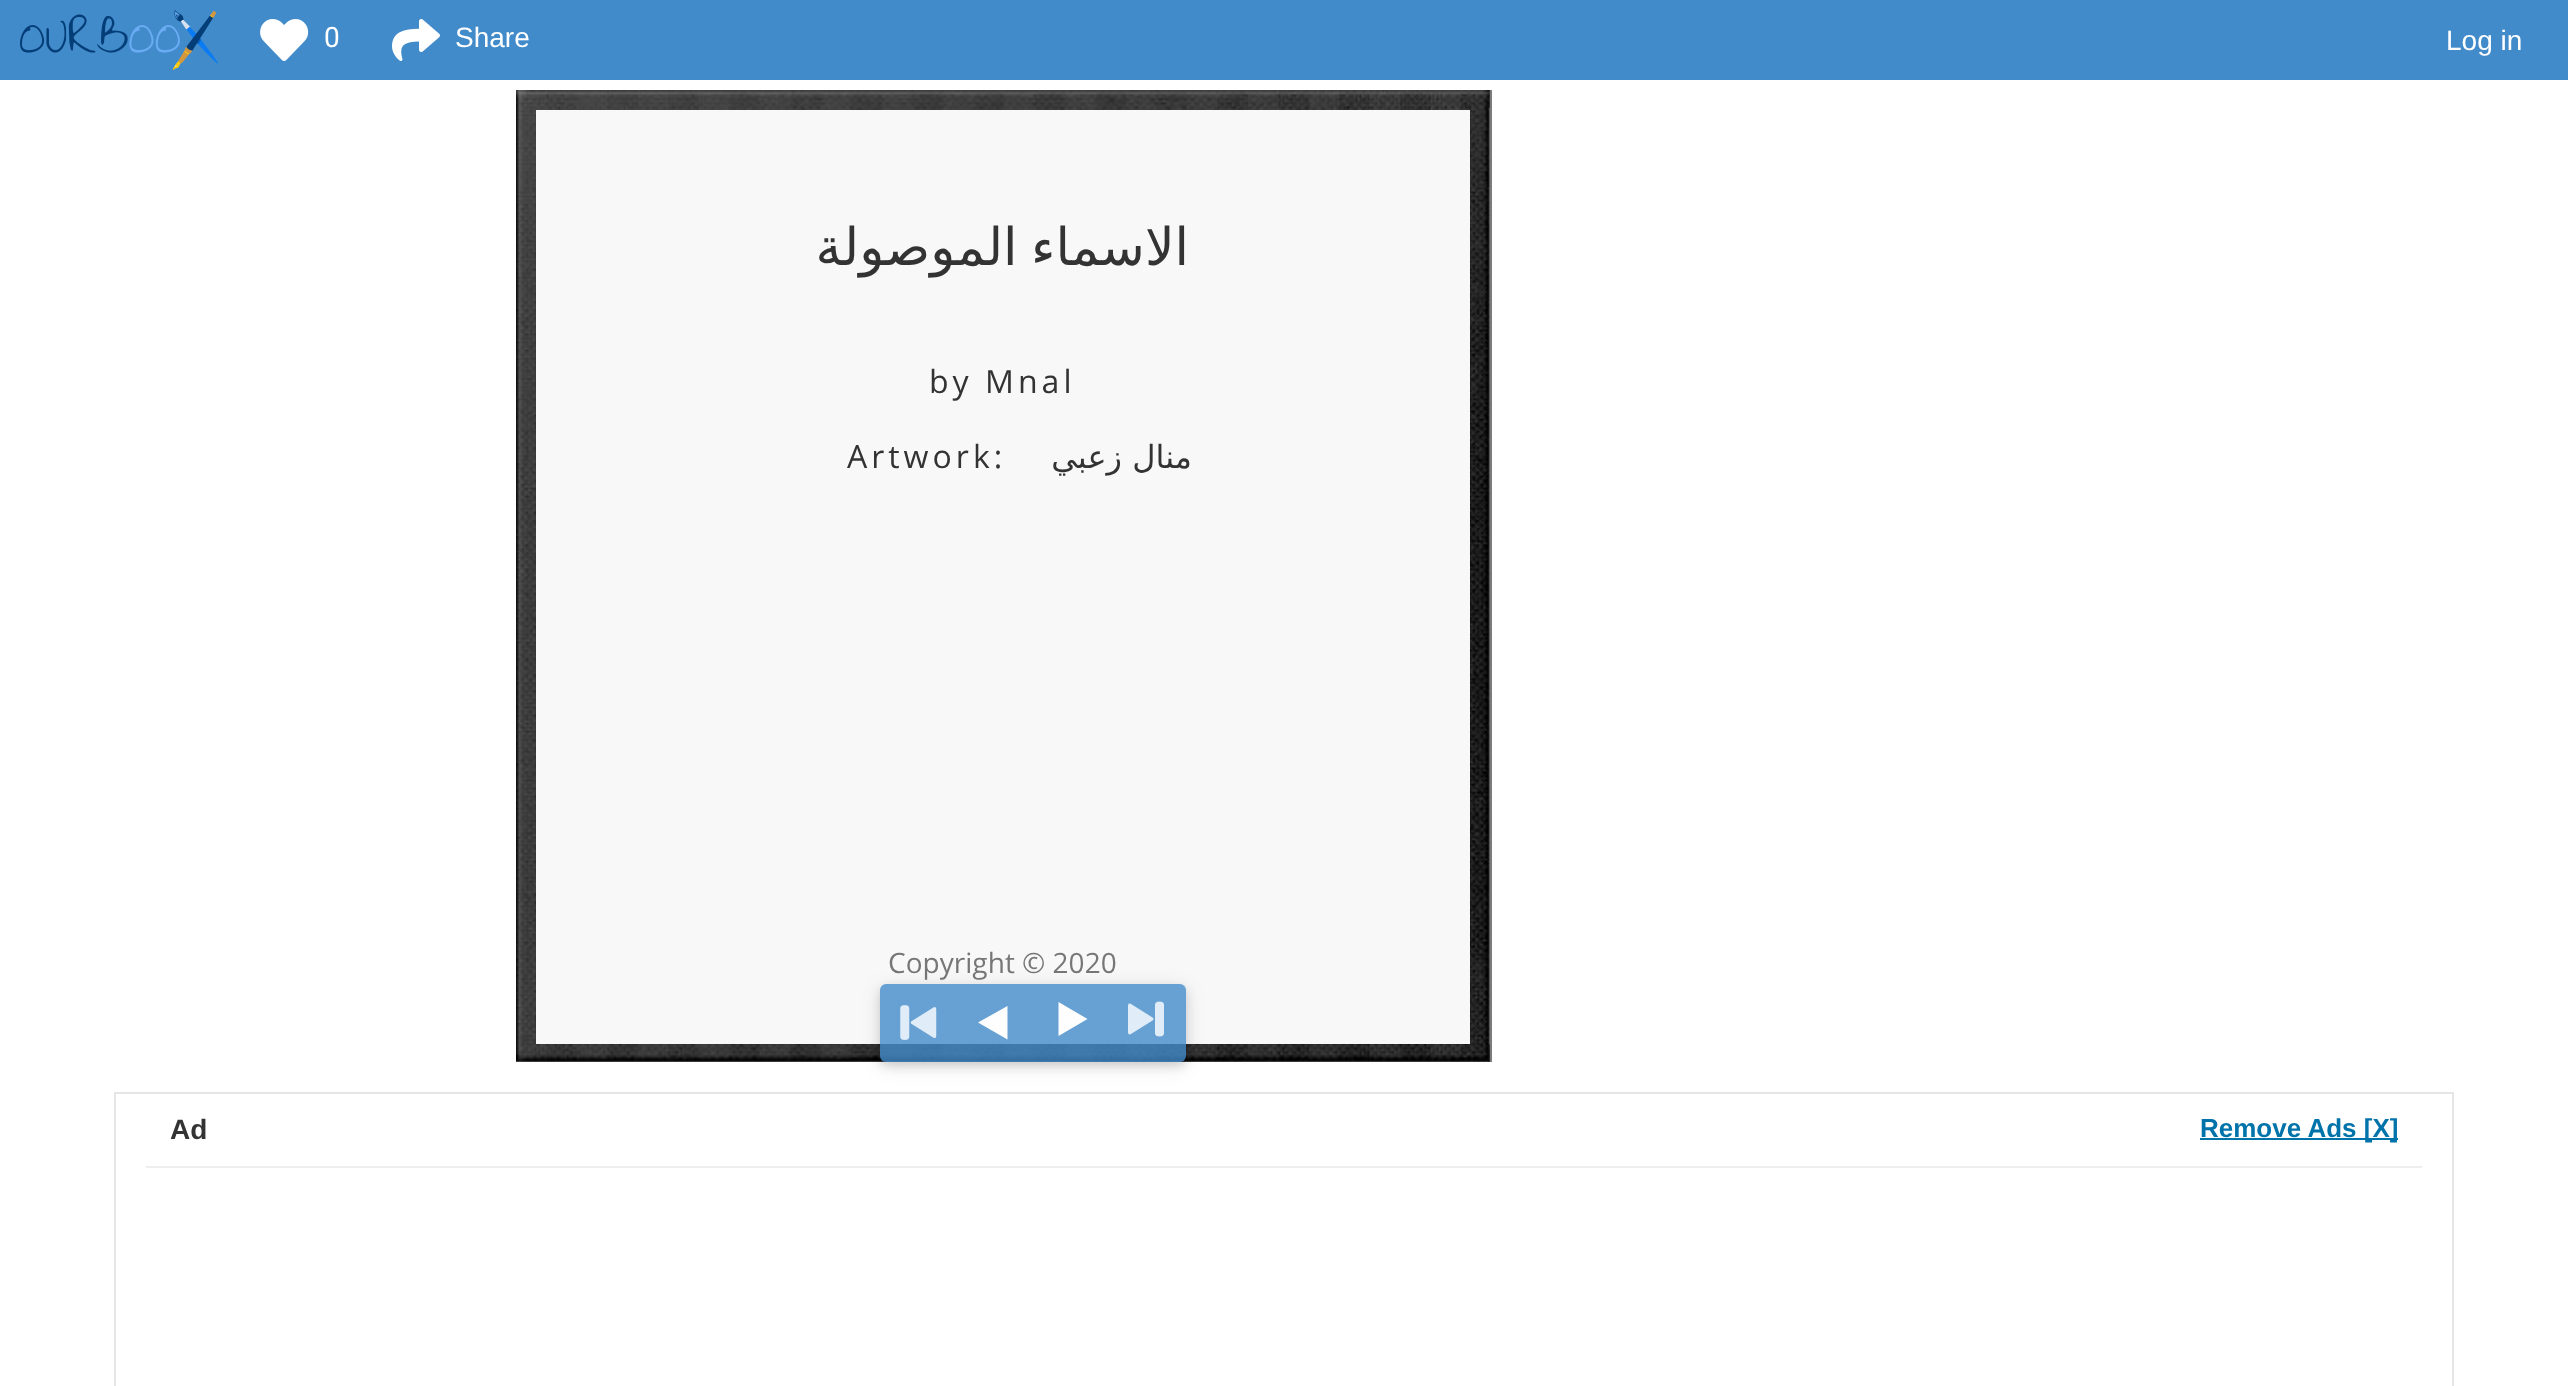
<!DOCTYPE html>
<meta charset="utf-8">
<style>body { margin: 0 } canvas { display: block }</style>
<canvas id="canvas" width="2568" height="1386"></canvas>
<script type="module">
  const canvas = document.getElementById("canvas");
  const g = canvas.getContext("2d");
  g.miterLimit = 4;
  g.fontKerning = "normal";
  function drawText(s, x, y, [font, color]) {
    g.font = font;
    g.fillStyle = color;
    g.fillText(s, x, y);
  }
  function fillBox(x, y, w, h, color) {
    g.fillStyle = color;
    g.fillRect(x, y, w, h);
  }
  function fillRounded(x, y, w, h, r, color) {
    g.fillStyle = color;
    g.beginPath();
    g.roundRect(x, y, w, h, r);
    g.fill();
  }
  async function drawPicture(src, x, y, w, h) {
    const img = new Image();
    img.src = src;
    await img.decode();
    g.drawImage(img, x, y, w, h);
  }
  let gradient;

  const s1 = ["28px Roboto", "#FFFFFF"];
  const s2 = ["28px Liberation Sans", "#FFFFFF"];
  const s3 = ["52px DejaVu Sans", "#333333"];
  const s4 = ["32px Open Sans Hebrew", "#333333"];
  const s5 = ["32px DejaVu Sans", "#333333"];
  const s6 = ["28px Open Sans Hebrew", "#777777"];
  const s7 = ["bold 28px Liberation Sans", "#333333"];
  const s8 = ["bold 26px Liberation Sans", "#0073AA"];

  fillBox(0, 0, 2568, 1386, "#FFFFFF");
  fillBox(0, 0, 2568, 80, "#428BCA");
  await drawPicture("pic1.png", 20, 10, 198, 60);
  await drawPicture("pic2.png", 260, 19, 49, 42);
  drawText("0", 324, 47, s1);
  await drawPicture("pic3.png", 392, 19, 48, 42);
  drawText("Share", 455, 47, s2);
  drawText("Log in", 2446, 50, s2);
  fillBox(1488, 90, 4, 972, "#7B7B7B");
  await drawPicture("pic4.png", 516, 90, 974, 972);
  gradient = g.createLinearGradient(558, 576, 1490, 576);
  gradient.addColorStop(0.95, "#FFFFFF");
  gradient.addColorStop(1, "#DADADA");
  g.fillStyle = gradient;
  g.fillRect(1488, 108, 2, 936);
  await drawPicture("pic5.png", 516, 90, 974, 972);
  fillBox(536, 110, 934, 934, "#F8F8F8");
  g.wordSpacing = "-3px";
  g.direction = "rtl";
  drawText("الاسماء الموصولة", 1189, 265, s3);
  g.letterSpacing = "4px";
  g.wordSpacing = "0px";
  g.direction = "ltr";
  drawText("by Mnal", 929, 393, s4);
  drawText("Artwork:", 847, 468, s4);
  g.wordSpacing = "-4px";
  g.direction = "rtl";
  drawText("منال زعبي", 1192, 468, s5);
  g.letterSpacing = "0px";
  g.wordSpacing = "0px";
  g.direction = "ltr";
  drawText("Copyright © 2020", 888, 973, s6);
  g.strokeStyle = "#E5E5E5";
  g.lineWidth = 2;
  g.strokeRect(115, 1093, 2338, 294);
  g.save();
  g.beginPath();
  g.moveTo(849, 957);
  g.lineTo(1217, 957);
  g.lineTo(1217, 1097);
  g.lineTo(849, 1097);
  g.closePath();
  g.moveTo(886, 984);
  g.lineTo(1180, 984);
  g.bezierCurveTo(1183.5, 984, 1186, 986.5, 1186, 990);
  g.lineTo(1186, 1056);
  g.bezierCurveTo(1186, 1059.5, 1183.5, 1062, 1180, 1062);
  g.lineTo(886, 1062);
  g.bezierCurveTo(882.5, 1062, 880, 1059.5, 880, 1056);
  g.lineTo(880, 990);
  g.bezierCurveTo(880, 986.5, 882.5, 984, 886, 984);
  g.closePath();
  g.clip("evenodd");
  g.fillStyle = "rgba(0, 0, 0, 0.1)";
  g.filter = "blur(10px)";
  g.beginPath();
  g.roundRect(880, 988, 306, 78, 6);
  g.fill();
  g.filter = "none";
  g.restore();
  g.save();
  g.beginPath();
  g.moveTo(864, 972);
  g.lineTo(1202, 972);
  g.lineTo(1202, 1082);
  g.lineTo(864, 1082);
  g.closePath();
  g.moveTo(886, 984);
  g.lineTo(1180, 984);
  g.bezierCurveTo(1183.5, 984, 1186, 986.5, 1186, 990);
  g.lineTo(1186, 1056);
  g.bezierCurveTo(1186, 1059.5, 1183.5, 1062, 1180, 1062);
  g.lineTo(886, 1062);
  g.bezierCurveTo(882.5, 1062, 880, 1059.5, 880, 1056);
  g.lineTo(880, 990);
  g.bezierCurveTo(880, 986.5, 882.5, 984, 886, 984);
  g.closePath();
  g.clip("evenodd");
  g.fillStyle = "rgba(0, 0, 0, 0.13)";
  g.filter = "blur(5px)";
  g.beginPath();
  g.roundRect(880, 988, 306, 78, 6);
  g.fill();
  g.filter = "none";
  g.restore();
  fillRounded(880, 984, 306, 78, 6, "rgba(66, 139, 202, 0.8)");
  await drawPicture("pic6.png", 900, 1005, 37, 35);
  g.fillStyle = "#FEFEFE";
  g.beginPath();
  g.moveTo(1007.5, 1039.5);
  g.lineTo(978, 1022.5);
  g.lineTo(1007.5, 1006);
  g.closePath();
  g.fill();
  g.beginPath();
  g.moveTo(1058.5, 1002);
  g.lineTo(1087.5, 1019);
  g.lineTo(1058.5, 1036);
  g.closePath();
  g.fill();
  await drawPicture("pic7.png", 1128, 1001, 36, 36);
  fillBox(146, 1166, 2276, 2, "#EEEEEE");
  drawText("Ad", 170, 1139, s7);
  fillBox(2200, 1138, 198, 2, "#0073AA");
  drawText("Remove Ads [X]", 2200, 1137, s8);
</script>
